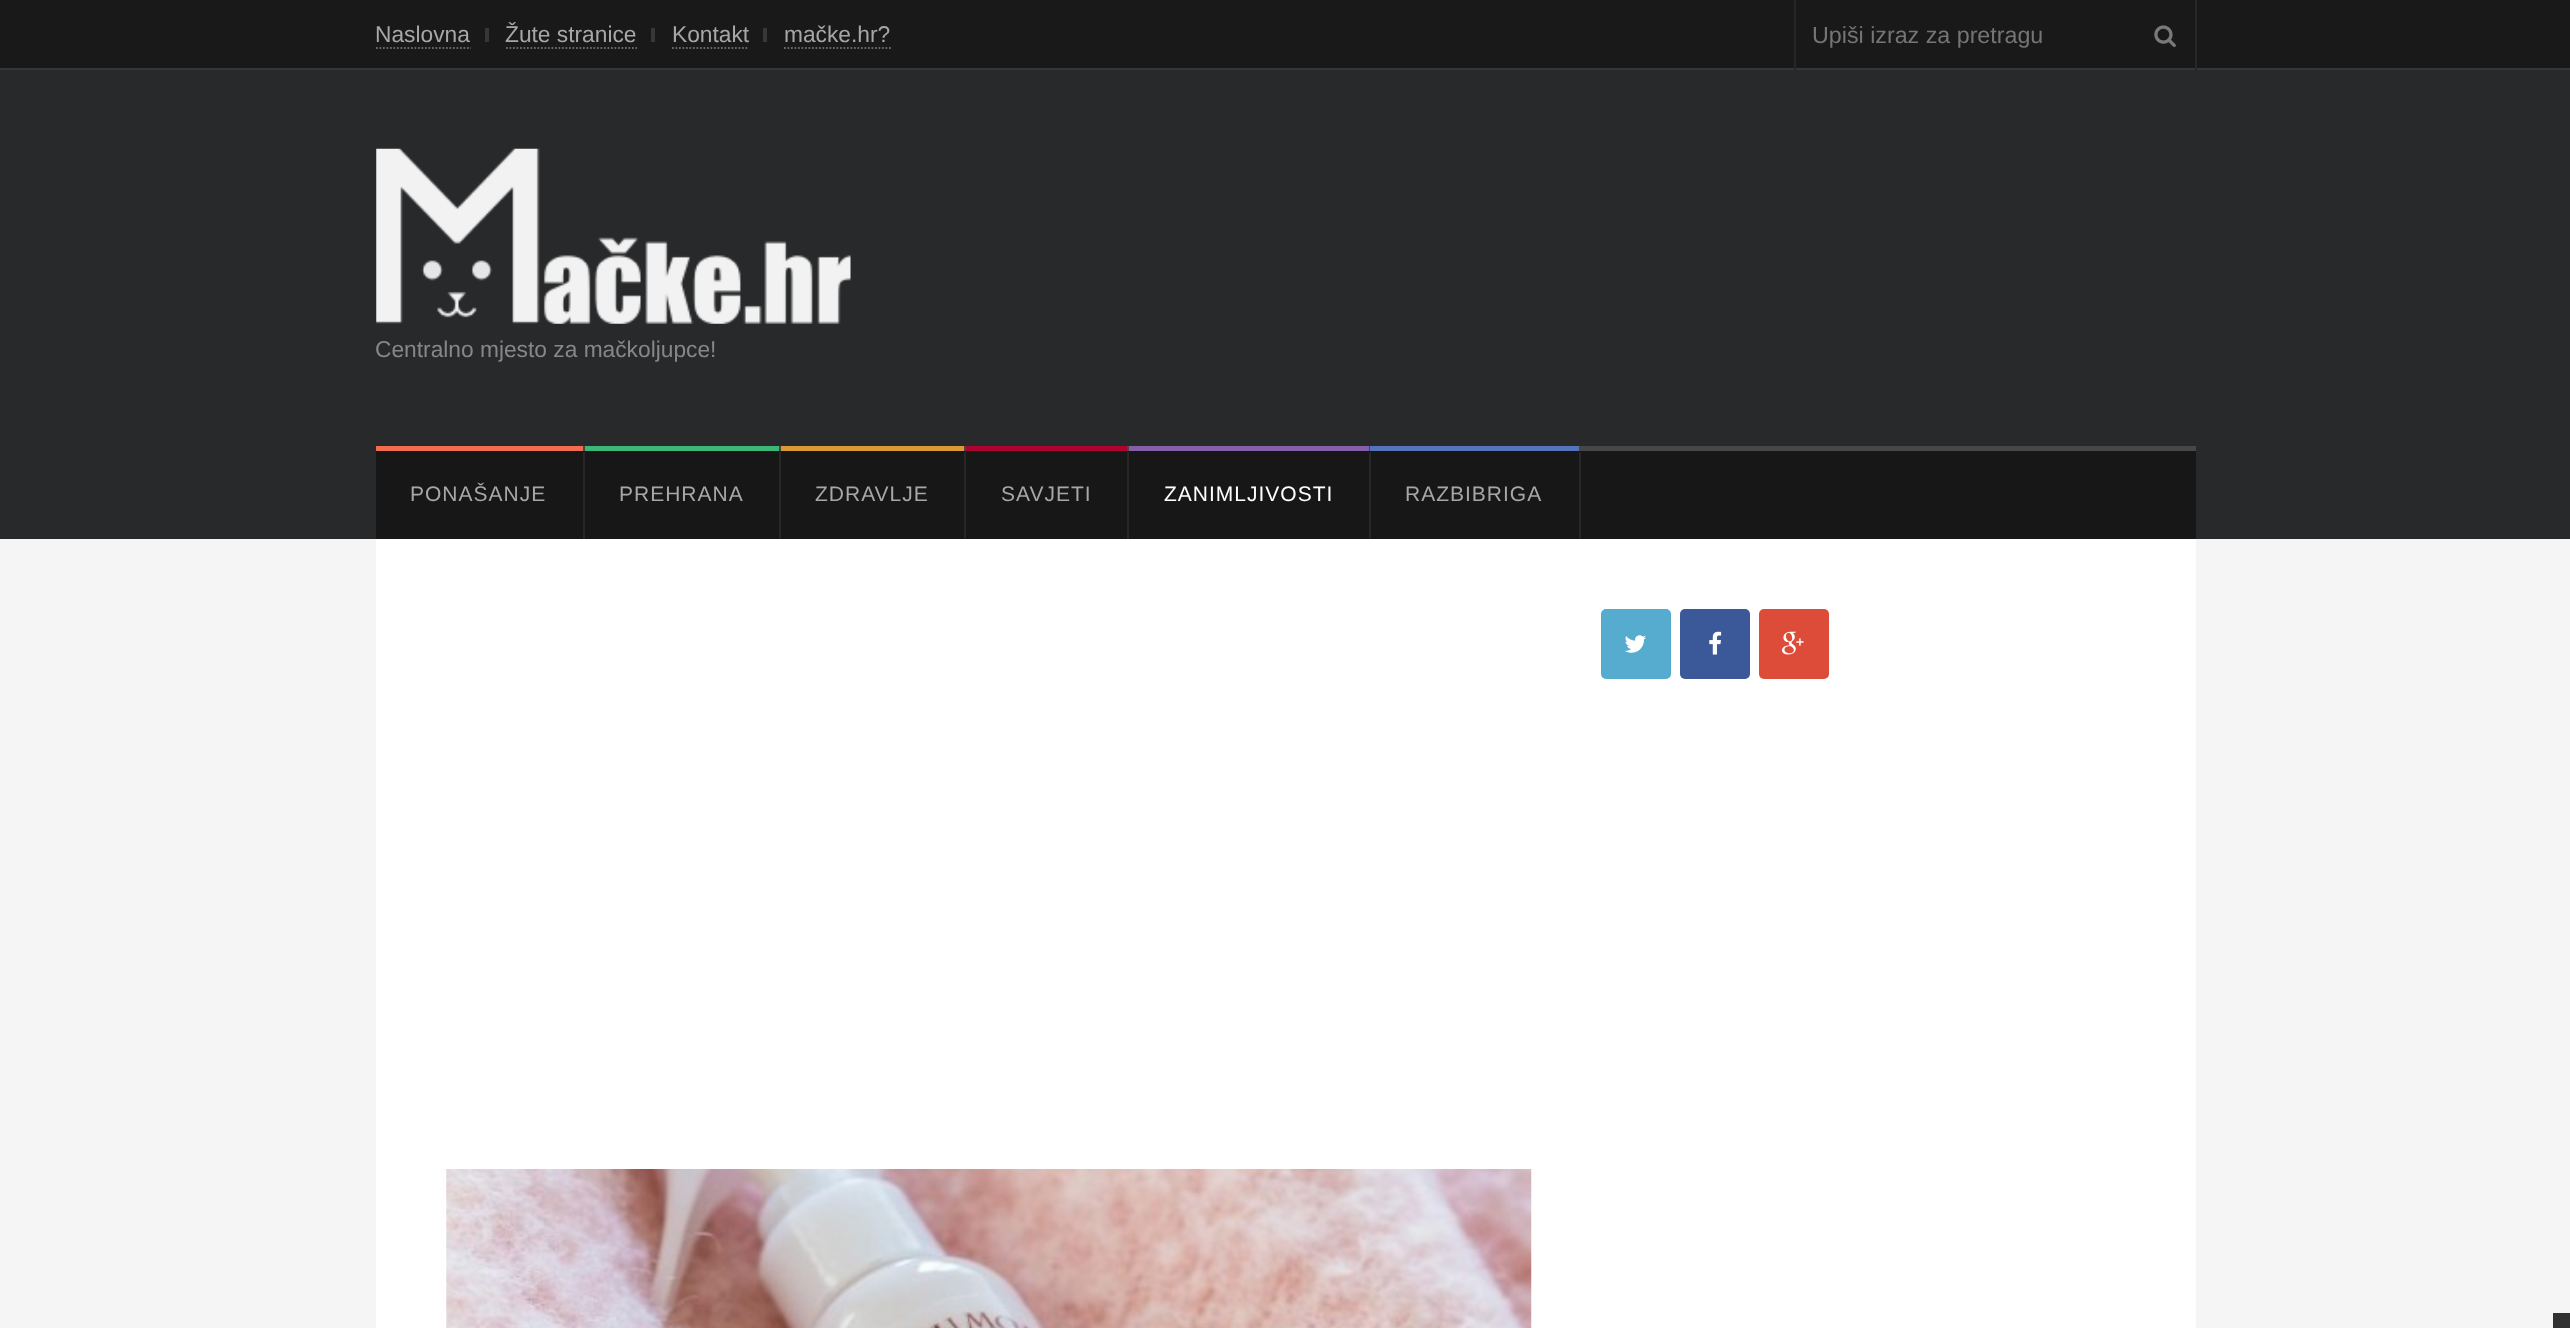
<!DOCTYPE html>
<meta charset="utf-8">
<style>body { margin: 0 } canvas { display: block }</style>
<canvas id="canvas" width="2570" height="1328"></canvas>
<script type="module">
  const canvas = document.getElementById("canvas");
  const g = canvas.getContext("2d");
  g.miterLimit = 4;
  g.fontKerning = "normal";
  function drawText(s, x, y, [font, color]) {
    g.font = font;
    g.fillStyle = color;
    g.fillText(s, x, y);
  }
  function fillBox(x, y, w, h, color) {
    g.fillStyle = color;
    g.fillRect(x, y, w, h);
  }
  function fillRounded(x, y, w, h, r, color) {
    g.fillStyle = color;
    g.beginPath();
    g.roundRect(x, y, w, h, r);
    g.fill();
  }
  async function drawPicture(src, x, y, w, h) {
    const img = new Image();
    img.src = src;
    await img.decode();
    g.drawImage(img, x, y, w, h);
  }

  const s1 = ["22.75px Liberation Sans", "#A7A7A7"];
  const s2 = ["23.25px Liberation Sans", "#757575"];
  const s3 = ["22.75px Liberation Sans", "#878787"];
  const s4 = ["21px Liberation Sans", "#A7A7A7"];
  const s5 = ["21px Liberation Sans", "#FFFFFF"];

  fillBox(0, 0, 2570, 1328, "#F5F5F5");
  fillBox(0, 70, 2570, 469, "#27292A");
  fillBox(0, 0, 2570, 68, "#191919");
  fillBox(0, 68, 2570, 2, "#373737");
  drawText("Naslovna", 375, 42, s1);
  g.beginPath();
  g.moveTo(376, 48);
  g.lineTo(471, 48);
  g.strokeStyle = "#676767";
  g.lineWidth = 1.8;
  g.setLineDash([1.75, 1.75]);
  g.stroke();
  fillBox(485, 28, 4, 14, "#373737");
  drawText("Žute stranice", 505, 42, s1);
  g.beginPath();
  g.moveTo(506, 48);
  g.lineTo(637, 48);
  g.stroke();
  fillBox(651, 28, 4, 14, "#373737");
  drawText("Kontakt", 672, 42, s1);
  g.beginPath();
  g.moveTo(672, 48);
  g.lineTo(749, 48);
  g.stroke();
  fillBox(763, 28, 4, 14, "#373737");
  drawText("mačke.hr?", 784, 42, s1);
  g.beginPath();
  g.moveTo(784, 48);
  g.lineTo(891, 48);
  g.stroke();
  fillBox(2195, 0, 2, 70, "#272727");
  fillBox(1794, 0, 2, 70, "#272727");
  drawText("Upiši izraz za pretragu", 1812, 43, s2);
  await drawPicture("pic1.png", 2154, 25, 22, 22);
  await drawPicture("pic2.png", 376, 148, 475, 176);
  drawText("Centralno mjesto za mačkoljupce!", 375, 357, s3);
  fillBox(376, 451, 1820, 88, "#171717");
  fillBox(583, 446, 1613, 5, "#474747");
  fillBox(583, 452, 2, 87, "#272727");
  fillBox(376, 446, 207, 5, "#F26C4F");
  g.letterSpacing = "1px";
  drawText("PONAŠANJE", 410, 501, s4);
  fillBox(779, 452, 2, 87, "#272727");
  fillBox(585, 446, 194, 5, "#3BB878");
  drawText("PREHRANA", 619, 501, s4);
  fillBox(964, 452, 2, 87, "#272727");
  fillBox(781, 446, 183, 5, "#DD9933");
  drawText("ZDRAVLJE", 815, 501, s4);
  fillBox(1127, 452, 2, 87, "#272727");
  fillBox(966, 446, 161, 5, "#AD0330");
  drawText("SAVJETI", 1001, 501, s4);
  fillBox(1369, 452, 2, 87, "#272727");
  fillBox(1129, 446, 240, 5, "#855FA8");
  drawText("ZANIMLJIVOSTI", 1164, 501, s5);
  fillBox(1579, 452, 2, 87, "#272727");
  fillBox(1370, 446, 209, 5, "#5574B9");
  drawText("RAZBIBRIGA", 1405, 501, s4);
  fillBox(376, 539, 1820, 789, "#FFFFFF");
  fillRounded(1601, 609, 70, 70, 5, "#55ACCE");
  await drawPicture("pic3.png", 1624, 635, 22, 18);
  fillRounded(1680, 609, 70, 70, 5, "#3B5998");
  await drawPicture("pic4.png", 1709, 631, 13, 24);
  fillRounded(1759, 609, 70, 70, 5, "#DD4B39");
  await drawPicture("pic5.png", 1781, 631, 23, 24);
  await drawPicture("pic6.png", 446, 1169, 1086, 159);
  fillBox(2553, 1313, 17, 15, "#313131");
</script>
